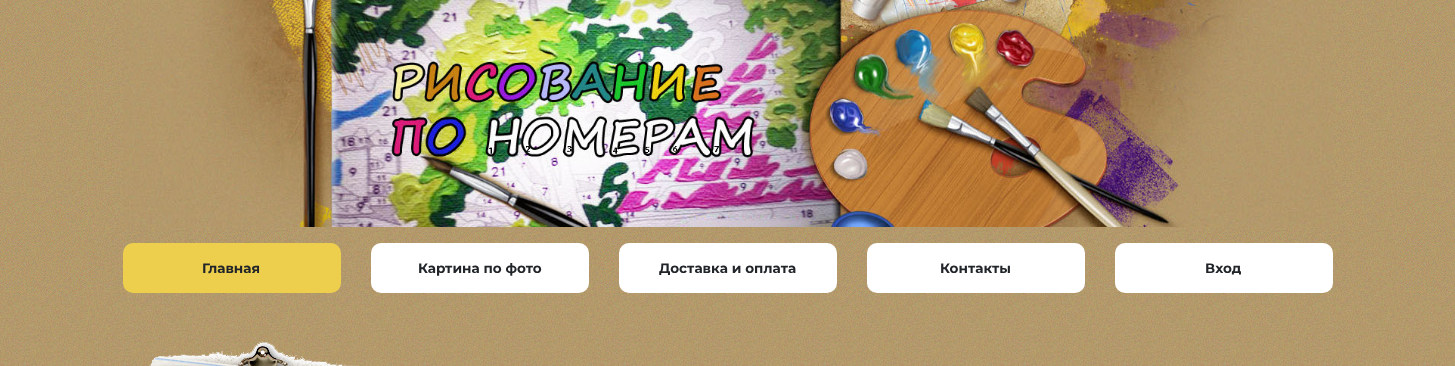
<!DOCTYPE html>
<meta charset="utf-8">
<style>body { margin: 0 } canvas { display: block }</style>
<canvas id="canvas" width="1455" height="366"></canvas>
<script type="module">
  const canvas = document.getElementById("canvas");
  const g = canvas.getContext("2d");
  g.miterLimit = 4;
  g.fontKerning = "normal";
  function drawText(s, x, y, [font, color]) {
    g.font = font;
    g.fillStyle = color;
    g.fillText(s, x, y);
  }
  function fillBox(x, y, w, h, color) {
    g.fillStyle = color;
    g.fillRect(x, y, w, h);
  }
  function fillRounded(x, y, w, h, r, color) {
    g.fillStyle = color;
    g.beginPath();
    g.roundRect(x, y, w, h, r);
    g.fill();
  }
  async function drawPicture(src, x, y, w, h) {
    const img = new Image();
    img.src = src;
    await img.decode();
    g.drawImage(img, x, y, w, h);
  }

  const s1 = ["bold 13.6px Montserrat", "#212529"];

  fillBox(0, 0, 1455, 366, "#FFFFFF");
  await drawPicture("pic1.png", 0, 0, 1455, 366);
  await drawPicture("pic2.png", 123, 0, 1210, 227);
  fillRounded(123, 243, 218, 50, 10, "#EDCF4D");
  drawText("Главная", 202, 273, s1);
  fillRounded(371, 243, 218, 50, 10, "#FFFFFF");
  drawText("Картина по фото", 418, 273, s1);
  fillRounded(619, 243, 218, 50, 10, "#FFFFFF");
  drawText("Доставка и оплата", 659, 273, s1);
  fillRounded(867, 243, 218, 50, 10, "#FFFFFF");
  drawText("Контакты", 940, 273, s1);
  fillRounded(1115, 243, 218, 50, 10, "#FFFFFF");
  drawText("Вход", 1205, 273, s1);
  await drawPicture("pic3.png", 149, 341, 210, 25);
</script>
